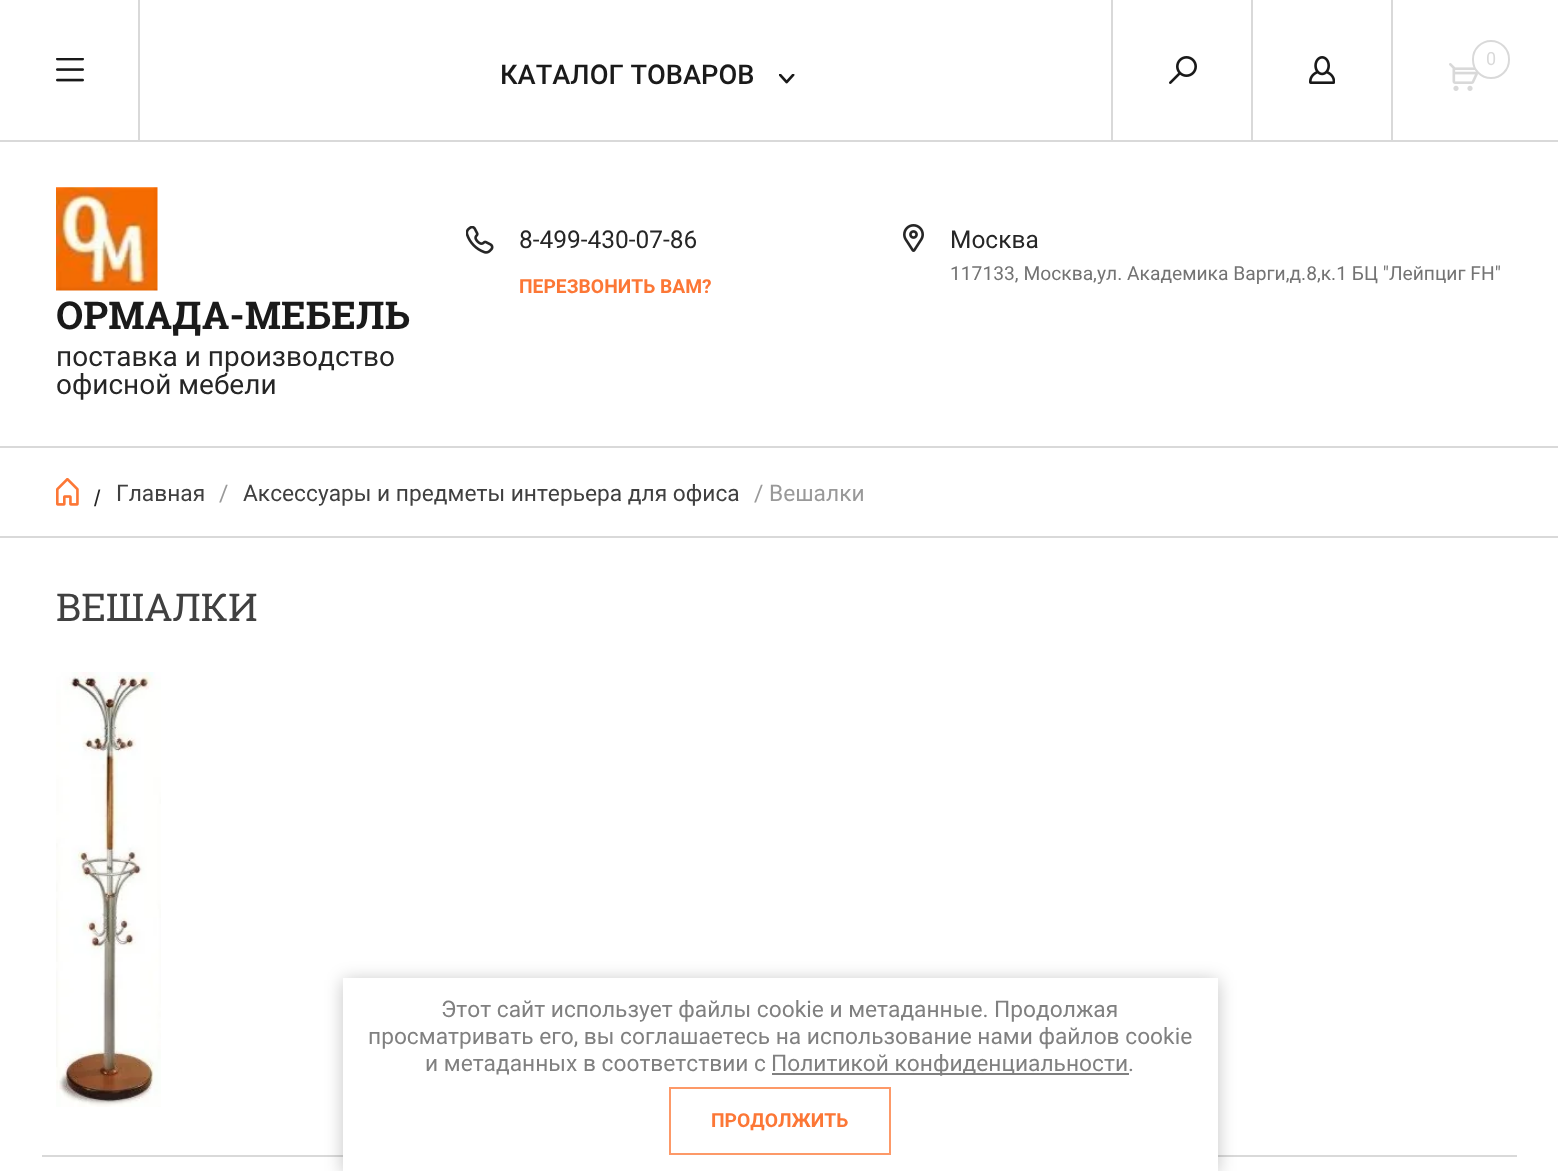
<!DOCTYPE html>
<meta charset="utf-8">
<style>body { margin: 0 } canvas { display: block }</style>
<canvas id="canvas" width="1558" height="1171"></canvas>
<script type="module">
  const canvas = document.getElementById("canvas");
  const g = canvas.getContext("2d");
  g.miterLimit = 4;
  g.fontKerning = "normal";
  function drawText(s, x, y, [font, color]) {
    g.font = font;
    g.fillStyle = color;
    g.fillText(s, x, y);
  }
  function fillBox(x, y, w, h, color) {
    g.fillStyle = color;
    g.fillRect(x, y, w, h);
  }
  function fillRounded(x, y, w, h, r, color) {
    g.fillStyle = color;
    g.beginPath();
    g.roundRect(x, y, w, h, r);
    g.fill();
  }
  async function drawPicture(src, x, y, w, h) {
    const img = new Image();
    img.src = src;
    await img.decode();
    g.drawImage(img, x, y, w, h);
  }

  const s1 = ["18px Roboto", "#D9D9D9"];
  const s2 = ["500 27.25px Roboto", "#1A1A1A"];
  const s3 = ["24.5px Roboto", "#262626"];
  const s4 = ["bold 19.25px Roboto", "#FC7736"];
  const s5 = ["19.25px Roboto", "#737373"];
  const s6 = ["bold 38.5px Roboto Slab", "#1A1A1A"];
  const s7 = ["28px Roboto", "#262626"];
  const s8 = ["22.75px Liberation Sans", "#262626"];
  const s9 = ["22.75px Roboto", "#404040"];
  const s10 = ["22.75px Roboto", "#999999"];
  const s11 = ["38.5px Roboto Slab", "#404040"];
  const s12 = ["22.75px Roboto", "#808080"];

  fillBox(0, 0, 1558, 1171, "#FFFFFF");
  fillBox(0, 140, 1558, 2, "#D9D9D9");
  await drawPicture("pic1.png", 56, 58, 28, 24);
  fillBox(138, 0, 2, 140, "#D9D9D9");
  fillBox(1111, 0, 2, 140, "#D9D9D9");
  await drawPicture("pic2.png", 1169, 56, 28, 28);
  await drawPicture("pic3.png", 1309, 56, 26, 28);
  fillBox(1251, 0, 2, 140, "#D9D9D9");
  await drawPicture("pic4.png", 1449, 63, 30, 28);
  fillBox(1391, 0, 2, 140, "#D9D9D9");
  fillRounded(1472, 40, 38, 39, 19, "#FFFFFF");
  g.beginPath();
  g.roundRect(1473, 41, 36, 37, 18);
  g.strokeStyle = "rgba(0, 0, 0, 0.15)";
  g.lineWidth = 2;
  g.stroke();
  drawText("0", 1486, 65, s1);
  drawText("КАТАЛОГ ТОВАРОВ", 500, 84, s2);
  await drawPicture("pic5.png", 779, 74, 16, 10);
  await drawPicture("pic6.png", 466, 226, 28, 28);
  drawText("8-499-430-07-86", 519, 248, s3);
  drawText("ПЕРЕЗВОНИТЬ ВАМ?", 519, 293, s4);
  await drawPicture("pic7.png", 903, 224, 21, 28);
  drawText("Москва", 950, 248, s3);
  drawText("117133, Москва,ул. Академика Варги,д.8,к.1 БЦ \"Лейпциг FH\"", 950, 280, s5);
  await drawPicture("pic8.png", 56, 187, 102, 104);
  drawText("ОРМАДА-МЕБЕЛЬ", 56, 329, s6);
  drawText("поставка и производство", 56, 366, s7);
  drawText("офисной мебели", 56, 394, s7);
  fillBox(0, 446, 1558, 2, "#D9D9D9");
  fillBox(0, 536, 1558, 2, "#D9D9D9");
  await drawPicture("pic9.png", 56, 478, 23, 28);
  drawText("/", 94, 506, s8);
  drawText("Главная", 116, 501, s9);
  drawText("/", 219, 501, s10);
  drawText("Аксессуары и предметы интерьера для офиса", 243, 501, s9);
  drawText("/ Вешалки", 754, 501, s10);
  drawText("ВЕШАЛКИ", 56, 621, s11);
  await drawPicture("pic10.png", 56, 672, 105, 435);
  fillBox(42, 1155, 1475, 2, "#D9D9D9");
  g.fillStyle = "rgba(0, 0, 0, 0.23)";
  g.filter = "blur(9px)";
  g.beginPath();
  g.rect(343, 980, 875, 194);
  g.fill();
  g.filter = "none";
  fillBox(343, 978, 875, 193, "#FFFFFF");
  drawText("Этот сайт использует файлы cookie и метаданные. Продолжая", 441, 1017, s12);
  drawText("просматривать его, вы соглашаетесь на использование нами файлов cookie", 368, 1044, s12);
  drawText("и метаданных в соответствии с", 425, 1071, s12);
  fillBox(772, 1073, 357, 2, "#808080");
  drawText("Политикой конфиденциальности.", 771, 1071, s12);
  g.strokeStyle = "#FD9968";
  g.strokeRect(670, 1088, 220, 66);
  drawText("ПРОДОЛЖИТЬ", 711, 1127, s4);
</script>
